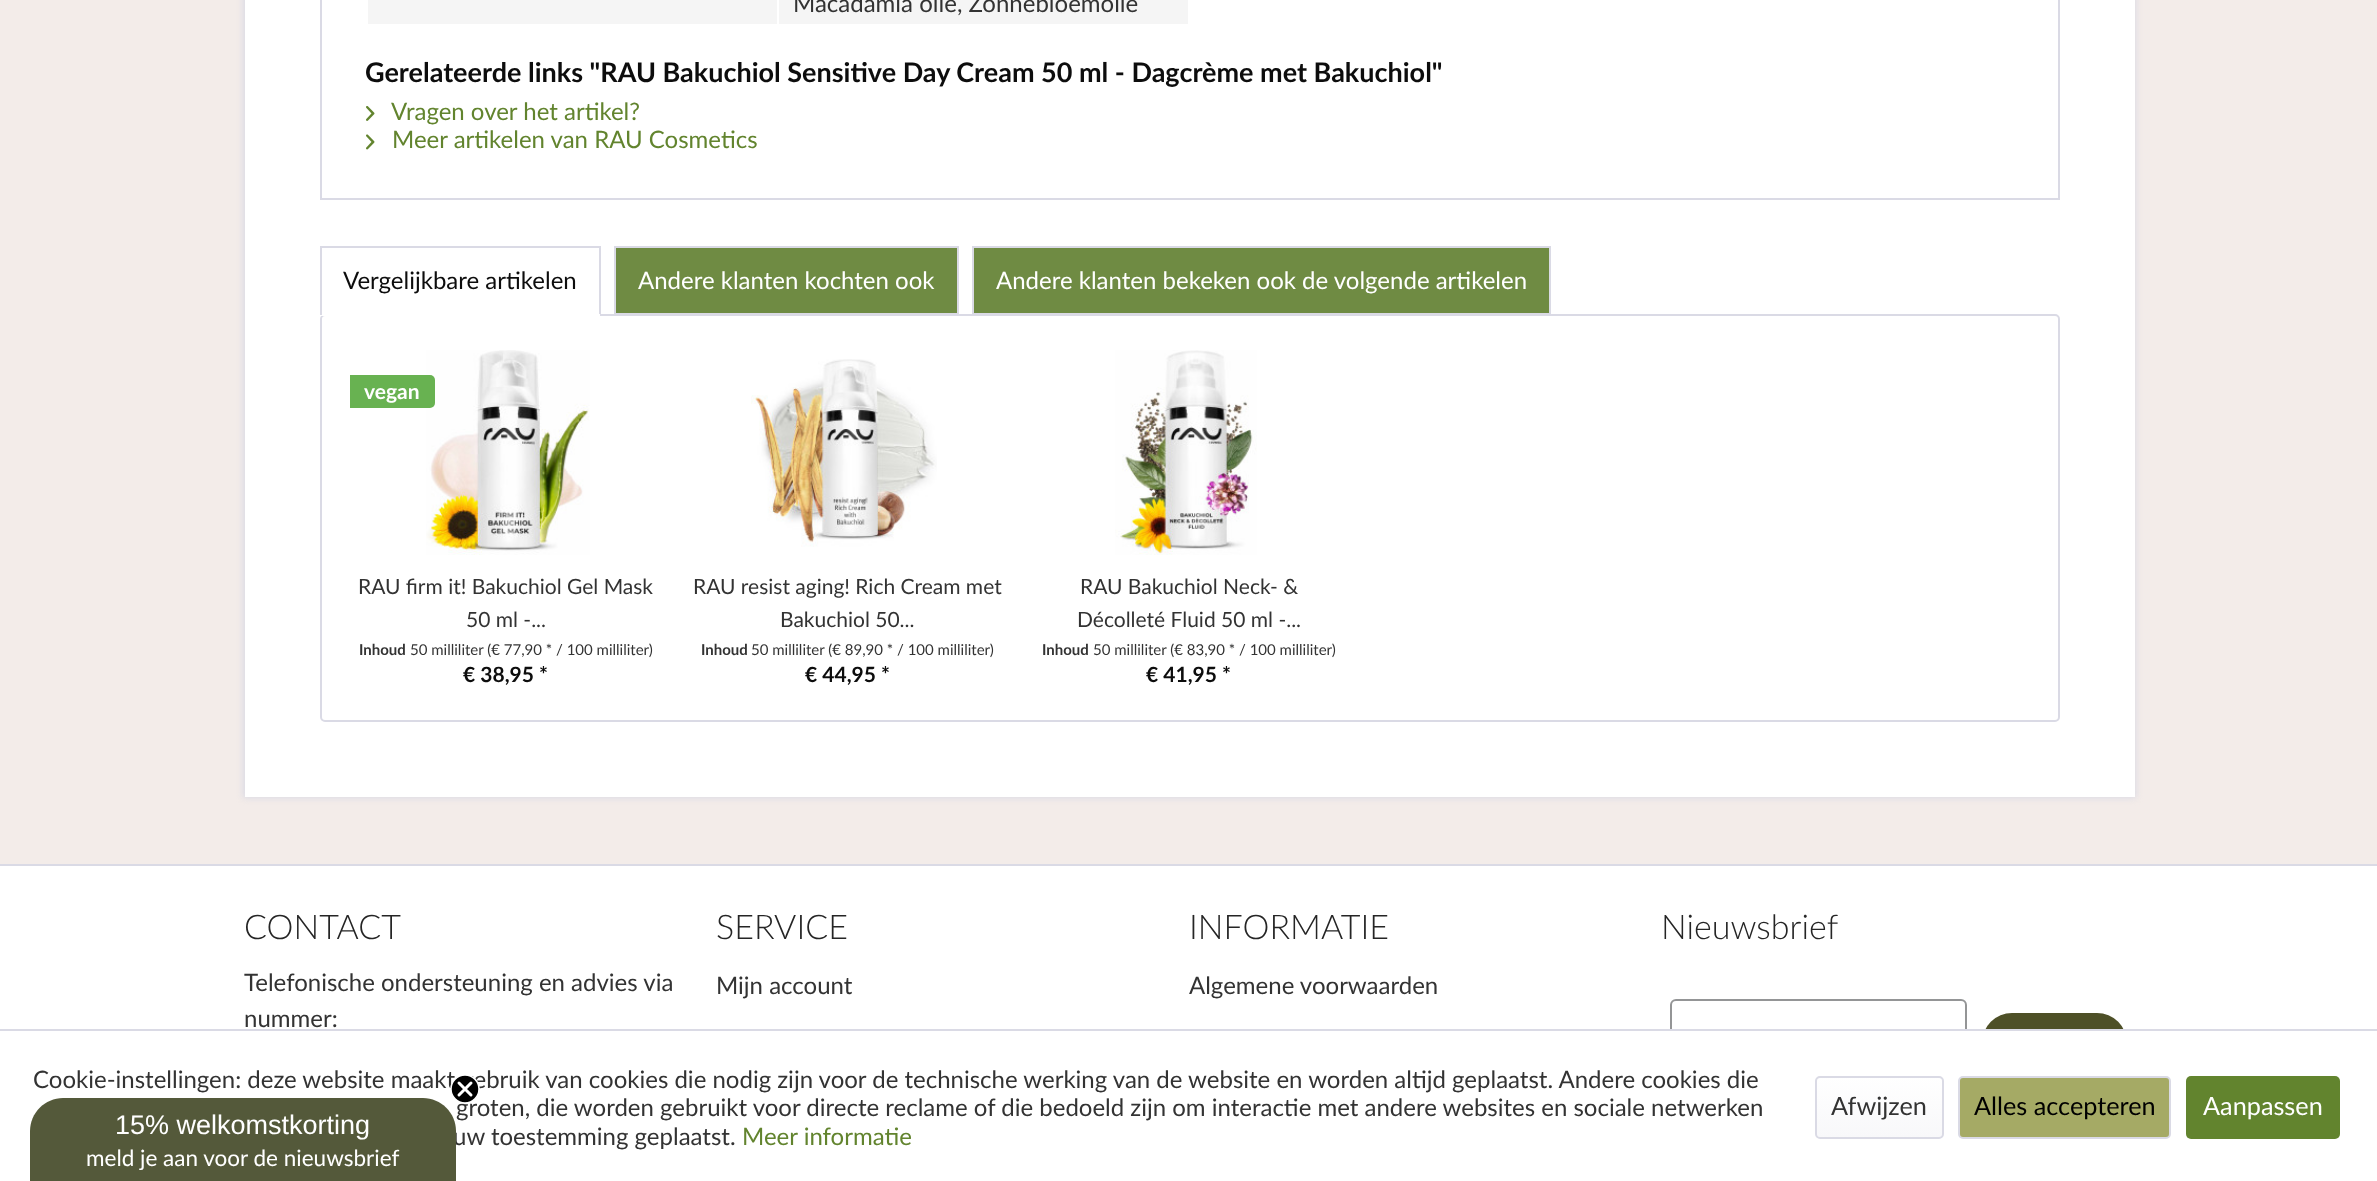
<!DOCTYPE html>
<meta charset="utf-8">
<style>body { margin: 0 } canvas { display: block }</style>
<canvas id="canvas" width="2377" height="1181"></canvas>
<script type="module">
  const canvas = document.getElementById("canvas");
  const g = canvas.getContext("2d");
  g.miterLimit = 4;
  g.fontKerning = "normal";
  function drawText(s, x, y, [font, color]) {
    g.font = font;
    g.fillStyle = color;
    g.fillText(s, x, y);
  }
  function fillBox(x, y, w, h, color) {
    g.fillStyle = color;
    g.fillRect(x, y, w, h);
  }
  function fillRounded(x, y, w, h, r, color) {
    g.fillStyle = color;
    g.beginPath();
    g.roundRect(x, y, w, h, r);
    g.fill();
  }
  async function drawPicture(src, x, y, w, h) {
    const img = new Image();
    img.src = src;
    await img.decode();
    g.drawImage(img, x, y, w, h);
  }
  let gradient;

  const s1 = ["24px Lato", "#333333"];
  const s2 = ["bold 27px Lato", "#0D0D0D"];
  const s3 = ["24px Lato", "#62842E"];
  const s4 = ["24px Lato", "#0D0D0D"];
  const s5 = ["24px Lato", "#FFFFFF"];
  const s6 = ["bold 21px Lato", "#FFFFFF"];
  const s7 = ["21px Lato", "#333333"];
  const s8 = ["bold 15px Lato", "#333333"];
  const s9 = ["15px Lato", "#333333"];
  const s10 = ["bold 21px Lato", "#0D0D0D"];
  const s11 = ["300 34px Lato", "#252525"];
  const s12 = ["25.25px Lato", "#333333"];
  const s13 = ["25.25px Lato", "#000000"];
  const s14 = ["25.25px Lato", "#FFFFFF"];
  const s15 = ["27px Liberation Sans", "#FFFFFF"];
  const s16 = ["22.5px Lato", "#FFFFFF"];

  fillBox(0, 0, 2377, 1181, "#F3ECE9");
  g.fillStyle = "#DADAE5";
  g.filter = "blur(3px)";
  g.beginPath();
  g.rect(243, -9, 1893, 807);
  g.fill();
  g.filter = "none";
  fillBox(245, 0, 1890, 797, "#FFFFFF");
  g.strokeStyle = "#DADAE5";
  g.lineWidth = 2;
  g.strokeRect(321, -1, 1738, 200);
  fillBox(368, 0, 409, 24, "#F5F5F5");
  fillBox(779, 0, 409, 24, "#F5F5F5");
  drawText("Macadamia olie, Zonnebloemolie", 793, 12, s1);
  drawText("Gerelateerde links \"RAU Bakuchiol Sensitive Day Cream 50 ml - Dagcrème met Bakuchiol\"", 365, 82, s2);
  await drawPicture("pic1.png", 366, 106, 9, 15);
  drawText("Vragen over het artikel?", 391, 120, s3);
  await drawPicture("pic2.png", 366, 134, 9, 16);
  drawText("Meer artikelen van RAU Cosmetics", 392, 148, s3);
  fillBox(320, 246, 280, 2, "#DADAE5");
  g.beginPath();
  g.roundRect(321, 315, 1738, 406, 4);
  g.stroke();
  fillBox(599, 246, 2, 69, "#DADAE5");
  fillBox(320, 314, 280, 2, "#FFFFFF");
  fillBox(320, 246, 2, 69, "#DADAE5");
  drawText("Vergelijkbare artikelen", 343, 289, s4);
  g.fillStyle = "#6F8B43";
  g.beginPath();
  g.rect(615, 247, 343, 67);
  g.fill();
  g.stroke();
  drawText("Andere klanten kochten ook", 638, 289, s5);
  g.fillStyle = "#6F8B43";
  g.beginPath();
  g.rect(973, 247, 577, 67);
  g.fill();
  g.stroke();
  drawText("Andere klanten bekeken ook de volgende artikelen", 996, 289, s5);
  await drawPicture("pic3.png", 426, 350, 164, 205);
  g.fillStyle = "#68B251";
  g.beginPath();
  g.roundRect(350, 375, 85, 33, [0, 5, 5, 0]);
  g.fill();
  drawText("vegan", 364, 399, s6);
  drawText("RAU firm it! Bakuchiol Gel Mask", 358, 594, s7);
  drawText("50 ml -...", 466, 627, s7);
  drawText("Inhoud", 359, 655, s8);
  drawText("50 milliliter (€ 77,90 * / 100 milliliter)", 410, 655, s9);
  drawText("€ 38,95 *", 463, 682, s10);
  await drawPicture("pic4.png", 751, 359, 186, 188);
  drawText("RAU resist aging! Rich Cream met", 693, 594, s7);
  drawText("Bakuchiol 50...", 780, 627, s7);
  drawText("Inhoud", 701, 655, s8);
  drawText("50 milliliter (€ 89,90 * / 100 milliliter)", 751, 655, s9);
  drawText("€ 44,95 *", 805, 682, s10);
  await drawPicture("pic5.png", 1115, 350, 142, 205);
  drawText("RAU Bakuchiol Neck- &", 1080, 594, s7);
  drawText("Décolleté Fluid 50 ml -...", 1077, 627, s7);
  drawText("Inhoud", 1042, 655, s8);
  drawText("50 milliliter (€ 83,90 * / 100 milliliter)", 1093, 655, s9);
  drawText("€ 41,95 *", 1146, 682, s10);
  fillBox(0, 866, 2377, 163, "#FFFFFF");
  fillBox(0, 864, 2377, 2, "#DADAE5");
  drawText("CONTACT", 244, 939, s11);
  drawText("Telefonische ondersteuning en advies via", 244, 991, s1);
  drawText("nummer:", 244, 1027, s1);
  drawText("SERVICE", 716, 939, s11);
  drawText("Mijn account", 716, 994, s1);
  drawText("INFORMATIE", 1189, 939, s11);
  drawText("Algemene voorwaarden", 1189, 994, s1);
  drawText("Nieuwsbrief", 1661, 939, s11);
  g.beginPath();
  g.roundRect(1671, 1000, 295, 79, 5);
  g.strokeStyle = "#949596";
  g.stroke();
  fillRounded(1982, 1013, 145, 60, 30, "#4E5027");
  fillBox(0, 1031, 2377, 150, "#FFFFFF");
  fillBox(0, 1029, 2377, 2, "#DADAE5");
  drawText("Cookie-instellingen: deze website maakt gebruik van cookies die nodig zijn voor de technische werking van de website en worden altijd geplaatst. Andere cookies die", 33, 1088, s1);
  drawText("groten, die worden gebruikt voor directe reclame of die bedoeld zijn om interactie met andere websites en sociale netwerken", 456, 1116, s1);
  drawText("uw toestemming geplaatst.", 453, 1145, s1);
  drawText("Meer informatie", 742, 1145, s3);
  gradient = g.createLinearGradient(1880, 1077, 1880, 1137);
  gradient.addColorStop(0, "#FFFFFF");
  gradient.addColorStop(1, "#F8F8FA");
  g.fillStyle = gradient;
  g.beginPath();
  g.roundRect(1817, 1077, 126, 60, 3);
  g.fill();
  g.beginPath();
  g.roundRect(1816, 1077, 127, 61, 4);
  g.strokeStyle = "#DADAE5";
  g.stroke();
  drawText("Afwijzen", 1831, 1115, s12);
  g.fillStyle = "#A5AA65";
  g.beginPath();
  g.roundRect(1959, 1077, 211, 61, 4);
  g.fill();
  g.stroke();
  drawText("Alles accepteren", 1974, 1115, s13);
  fillRounded(2186, 1076, 154, 63, 5, "#62842E");
  drawText("Aanpassen", 2203, 1115, s14);
  g.fillStyle = "#54593A";
  g.beginPath();
  g.moveTo(63, 1098);
  g.lineTo(423, 1098);
  g.bezierCurveTo(441, 1098, 456, 1113, 456, 1131);
  g.lineTo(456, 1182);
  g.lineTo(30, 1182);
  g.lineTo(30, 1131);
  g.bezierCurveTo(30, 1113, 45, 1098, 63, 1098);
  g.closePath();
  g.fill();
  g.fillStyle = "#000000";
  g.beginPath();
  g.arc(465, 1089, 14, 0, Math.PI * 2);
  g.fill();
  g.strokeStyle = "#FFFFFF";
  g.lineWidth = 1.5;
  g.stroke();
  g.beginPath();
  g.moveTo(459, 1083);
  g.lineTo(471, 1095);
  g.moveTo(459, 1095);
  g.lineTo(471, 1083);
  g.closePath();
  g.lineWidth = 3;
  g.lineCap = "round";
  g.lineJoin = "round";
  g.stroke();
  drawText("15% welkomstkorting", 115, 1134, s15);
  drawText("meld je aan voor de nieuwsbrief", 86, 1166, s16);
</script>
